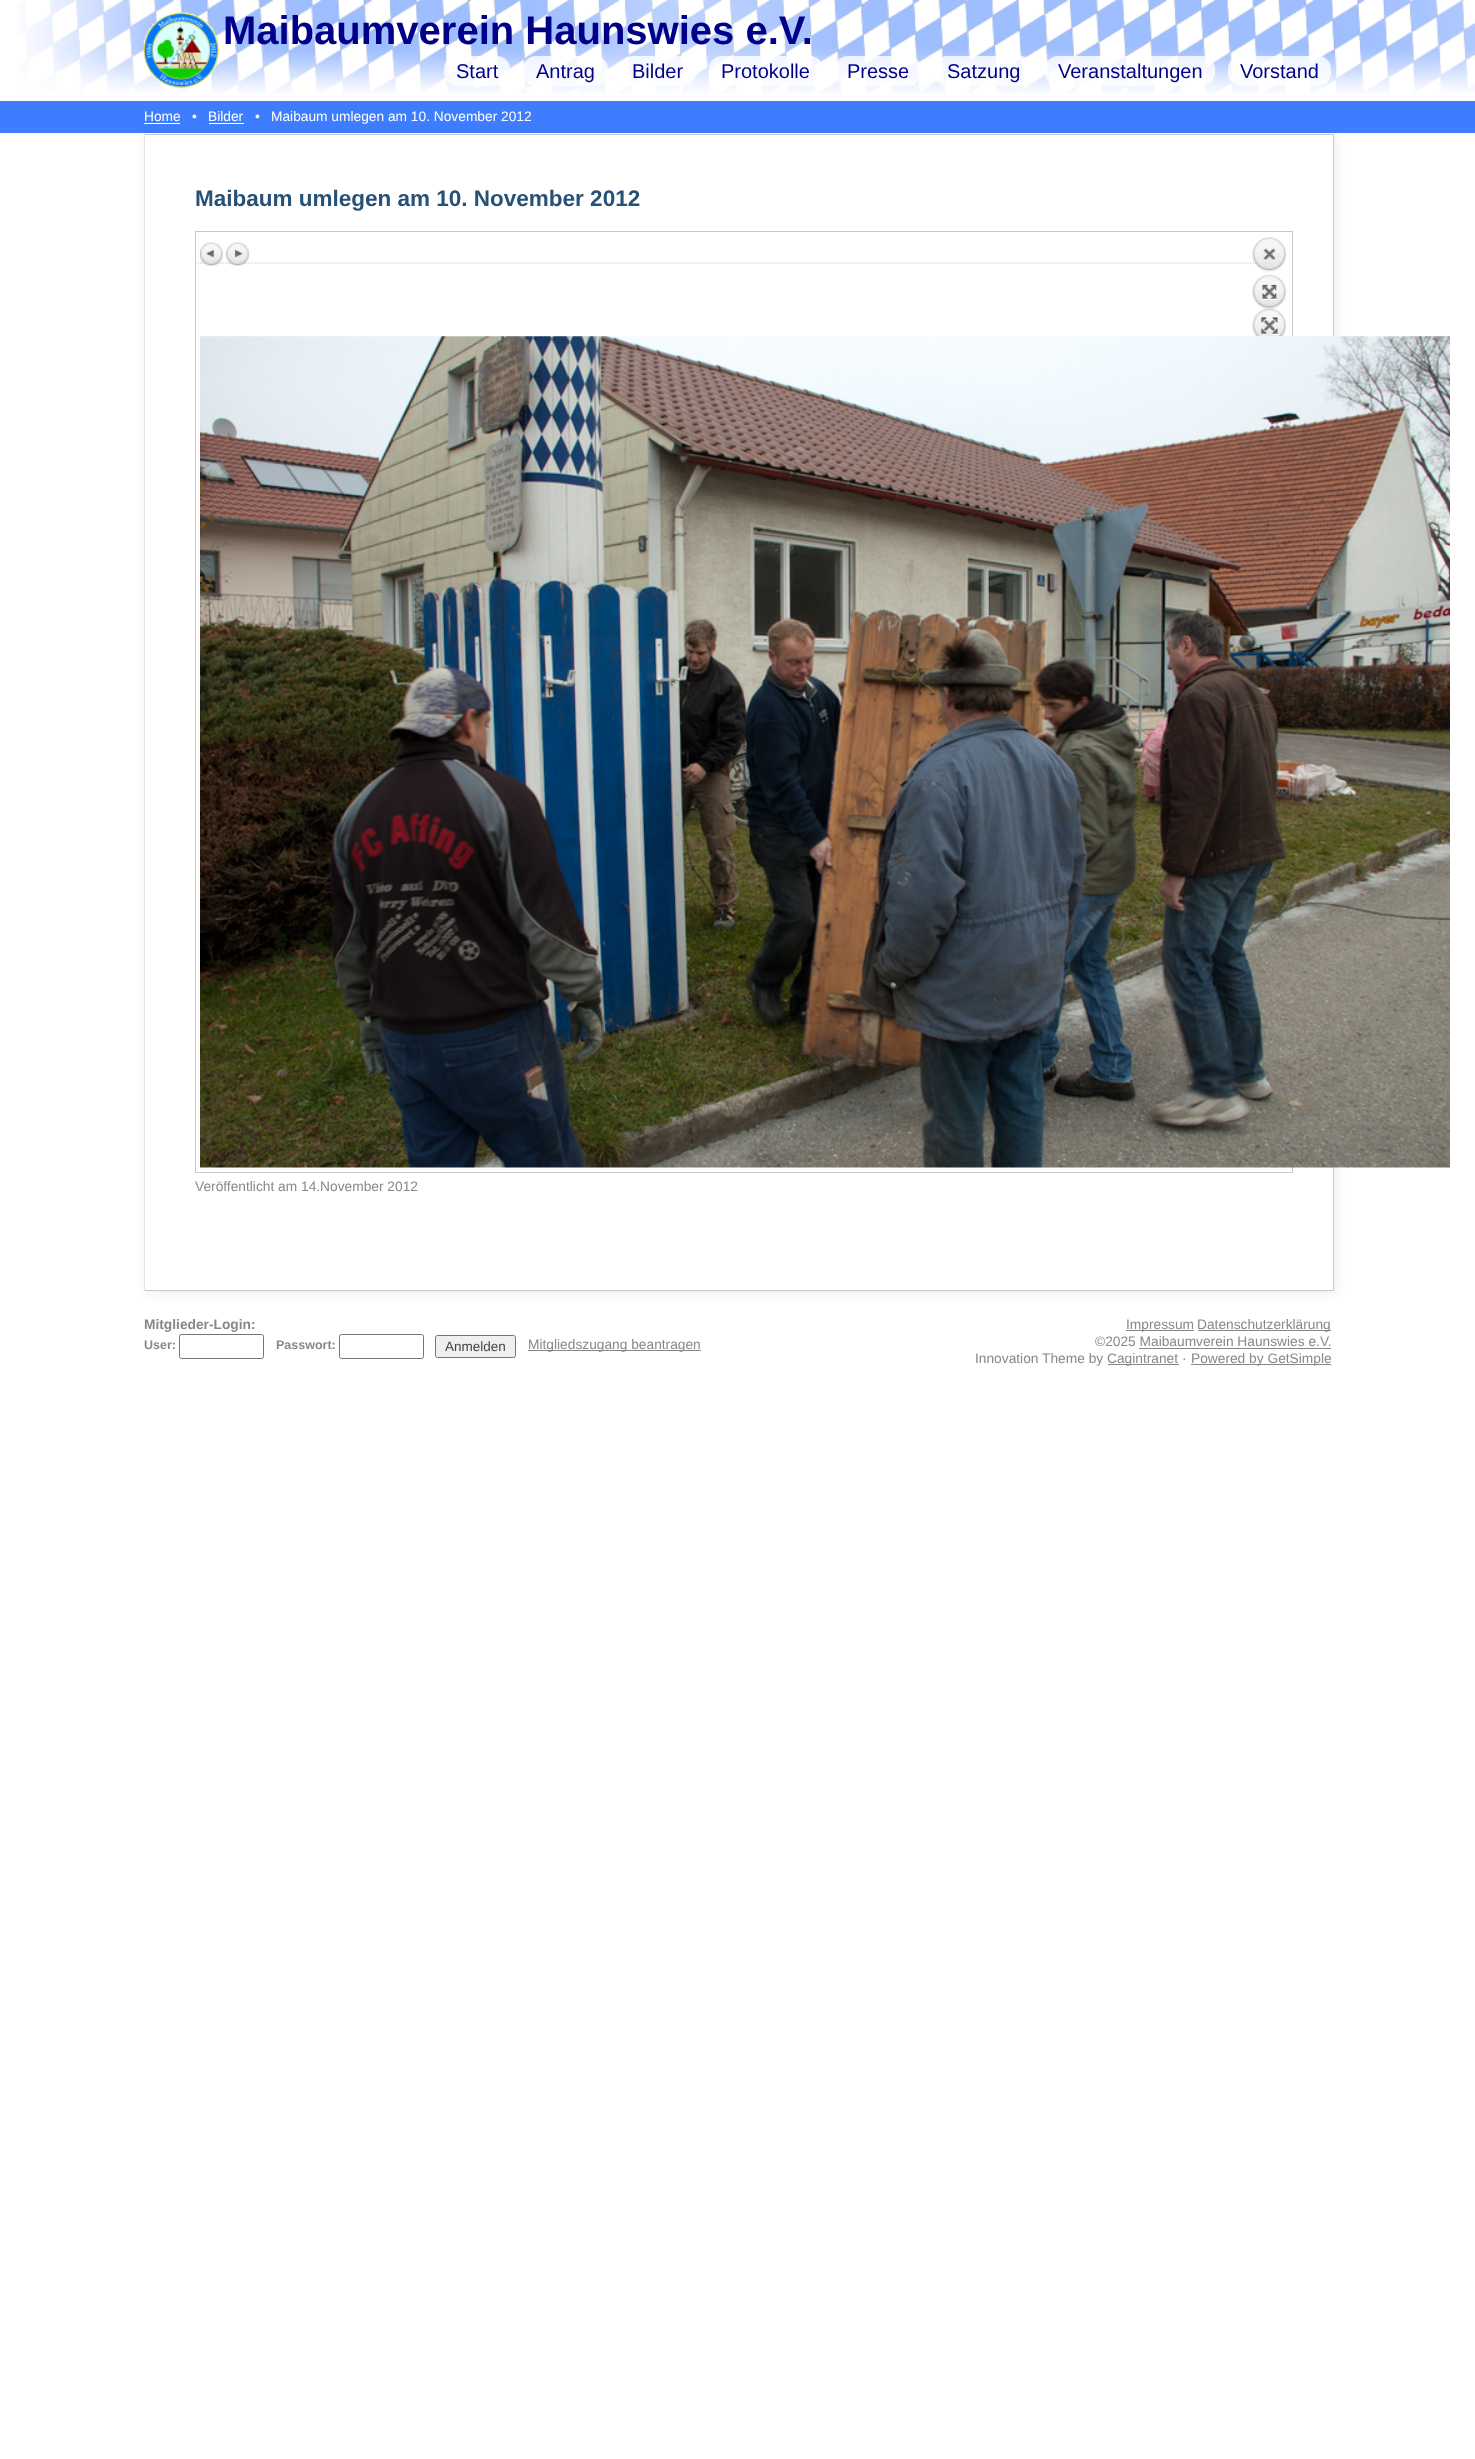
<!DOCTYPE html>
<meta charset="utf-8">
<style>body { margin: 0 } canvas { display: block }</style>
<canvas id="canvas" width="1475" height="2459"></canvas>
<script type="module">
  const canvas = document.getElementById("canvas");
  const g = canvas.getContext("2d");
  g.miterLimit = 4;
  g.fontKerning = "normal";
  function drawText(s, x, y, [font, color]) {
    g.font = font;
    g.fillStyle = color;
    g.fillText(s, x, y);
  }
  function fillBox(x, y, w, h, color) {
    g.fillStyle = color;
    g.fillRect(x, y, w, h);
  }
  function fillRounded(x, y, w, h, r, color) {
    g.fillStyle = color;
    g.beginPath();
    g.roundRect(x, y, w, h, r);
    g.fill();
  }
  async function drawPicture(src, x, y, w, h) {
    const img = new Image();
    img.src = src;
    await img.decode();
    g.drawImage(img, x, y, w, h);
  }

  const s1 = ["bold 40px Liberation Sans", "#000088"];
  const s2 = ["20px Liberation Sans", "#000088"];
  const s3 = ["13.75px Liberation Sans", "#FFFFFF"];
  const s4 = ["bold 22.5px Liberation Sans", "#275176"];
  const s5 = ["13.75px Liberation Sans", "#888888"];
  const s6 = ["bold 13.75px Liberation Sans", "#888888"];
  const s7 = ["bold 12.5px Liberation Sans", "#888888"];
  const s8 = ["13.5px Liberation Sans", "#444444"];

  fillBox(0, 0, 1475, 2459, "#FFFFFF");
  await drawPicture("pic1.png", 17, 0, 1458, 94);
  await drawPicture("pic2.png", 143, 12, 76, 76);
  drawText("Maibaumverein Haunswies e.V.", 223, 44, s1);
  fillRounded(444, 56, 66, 30, 13, "rgba(255, 255, 255, 0.8)");
  drawText("Start", 456, 78, s2);
  fillRounded(523, 56, 85, 30, 13, "rgba(255, 255, 255, 0.8)");
  drawText("Antrag", 536, 78, s2);
  fillRounded(620, 56, 76, 30, 13, "rgba(255, 255, 255, 0.8)");
  drawText("Bilder", 632, 78, s2);
  fillRounded(709, 56, 114, 30, 13, "rgba(255, 255, 255, 0.8)");
  drawText("Protokolle", 721, 78, s2);
  fillRounded(835, 56, 86, 30, 13, "rgba(255, 255, 255, 0.8)");
  drawText("Presse", 847, 78, s2);
  fillRounded(934, 56, 99, 30, 13, "rgba(255, 255, 255, 0.8)");
  drawText("Satzung", 947, 78, s2);
  fillRounded(1045, 56, 170, 30, 13, "rgba(255, 255, 255, 0.8)");
  drawText("Veranstaltungen", 1058, 78, s2);
  fillRounded(1228, 56, 103, 30, 13, "rgba(255, 255, 255, 0.8)");
  drawText("Vorstand", 1240, 78, s2);
  fillBox(0, 101, 1475, 32, "#3E7DFF");
  drawText("Home", 144, 121, s3);
  fillBox(144, 123, 36, 1, "#FFFFFF");
  drawText("•", 192, 121, s3);
  drawText("Bilder", 208, 121, s3);
  fillBox(209, 123, 35, 1, "#FFFFFF");
  drawText("•", 255, 121, s3);
  drawText("Maibaum umlegen am 10. November 2012", 271, 121, s3);
  g.fillStyle = "rgba(0, 0, 0, 0.07)";
  g.filter = "blur(6px)";
  g.beginPath();
  g.rect(146, 135, 1190, 1158);
  g.fill();
  g.filter = "none";
  fillBox(145, 135, 1188, 1155, "#FFFFFF");
  fillBox(144, 134, 1190, 1, "#C8C8C8");
  fillBox(1333, 134, 1, 1157, "#C8C8C8");
  fillBox(144, 1290, 1190, 1, "#C8C8C8");
  fillBox(144, 134, 1, 1157, "#E4E4E4");
  drawText("Maibaum umlegen am 10. November 2012", 195, 206, s4);
  g.beginPath();
  g.moveTo(195, 263);
  g.lineTo(1282.5, 263);
  g.strokeStyle = "#CCCCCC";
  g.lineWidth = 1.2;
  g.setLineDash([1.25, 1.25]);
  g.stroke();
  g.strokeStyle = "#C7C7C7";
  g.lineWidth = 1;
  g.setLineDash([]);
  g.strokeRect(195.5, 231.5, 1097, 941);
  await drawPicture("pic3.png", 200, 242, 23, 24);
  await drawPicture("pic4.png", 225, 242, 25, 24);
  await drawPicture("pic6.png", 200, 336, 1250, 832);
  await drawPicture("pic5.png", 1252, 237, 35, 100);
  drawText("Veröffentlicht am 14.November 2012", 195, 1191, s5);
  drawText("Mitglieder-Login:", 144, 1329, s6);
  drawText("User:", 144, 1349, s7);
  g.beginPath();
  g.roundRect(179.5, 1334.5, 84, 24, 2);
  g.strokeStyle = "#767676";
  g.stroke();
  drawText("Passwort:", 276, 1349, s7);
  g.beginPath();
  g.roundRect(339.5, 1334.5, 84, 24, 2);
  g.stroke();
  g.fillStyle = "#EFEFEF";
  g.beginPath();
  g.roundRect(435.5, 1335.5, 80, 22, 2);
  g.fill();
  g.stroke();
  drawText("Anmelden", 445, 1351, s8);
  fillBox(528, 1350, 173, 1, "#888888");
  drawText("Mitgliedszugang beantragen", 528, 1349, s5);
  fillBox(1126, 1330, 68, 1, "#888888");
  drawText("Impressum", 1126, 1329, s5);
  fillBox(1198, 1330, 133, 1, "#888888");
  drawText("Datenschutzerklärung", 1197, 1329, s5);
  drawText("©2025 Maibaumverein Haunswies e.V.", 1095, 1346, s5);
  fillBox(1139, 1348, 192, 1, "#888888");
  drawText("Innovation Theme by", 975, 1363, s5);
  fillBox(1108, 1364, 71, 1, "#888888");
  drawText("Cagintranet ·", 1107, 1363, s5);
  fillBox(1191, 1364, 140, 1, "#888888");
  drawText("Powered by GetSimple", 1191, 1363, s5);
</script>
